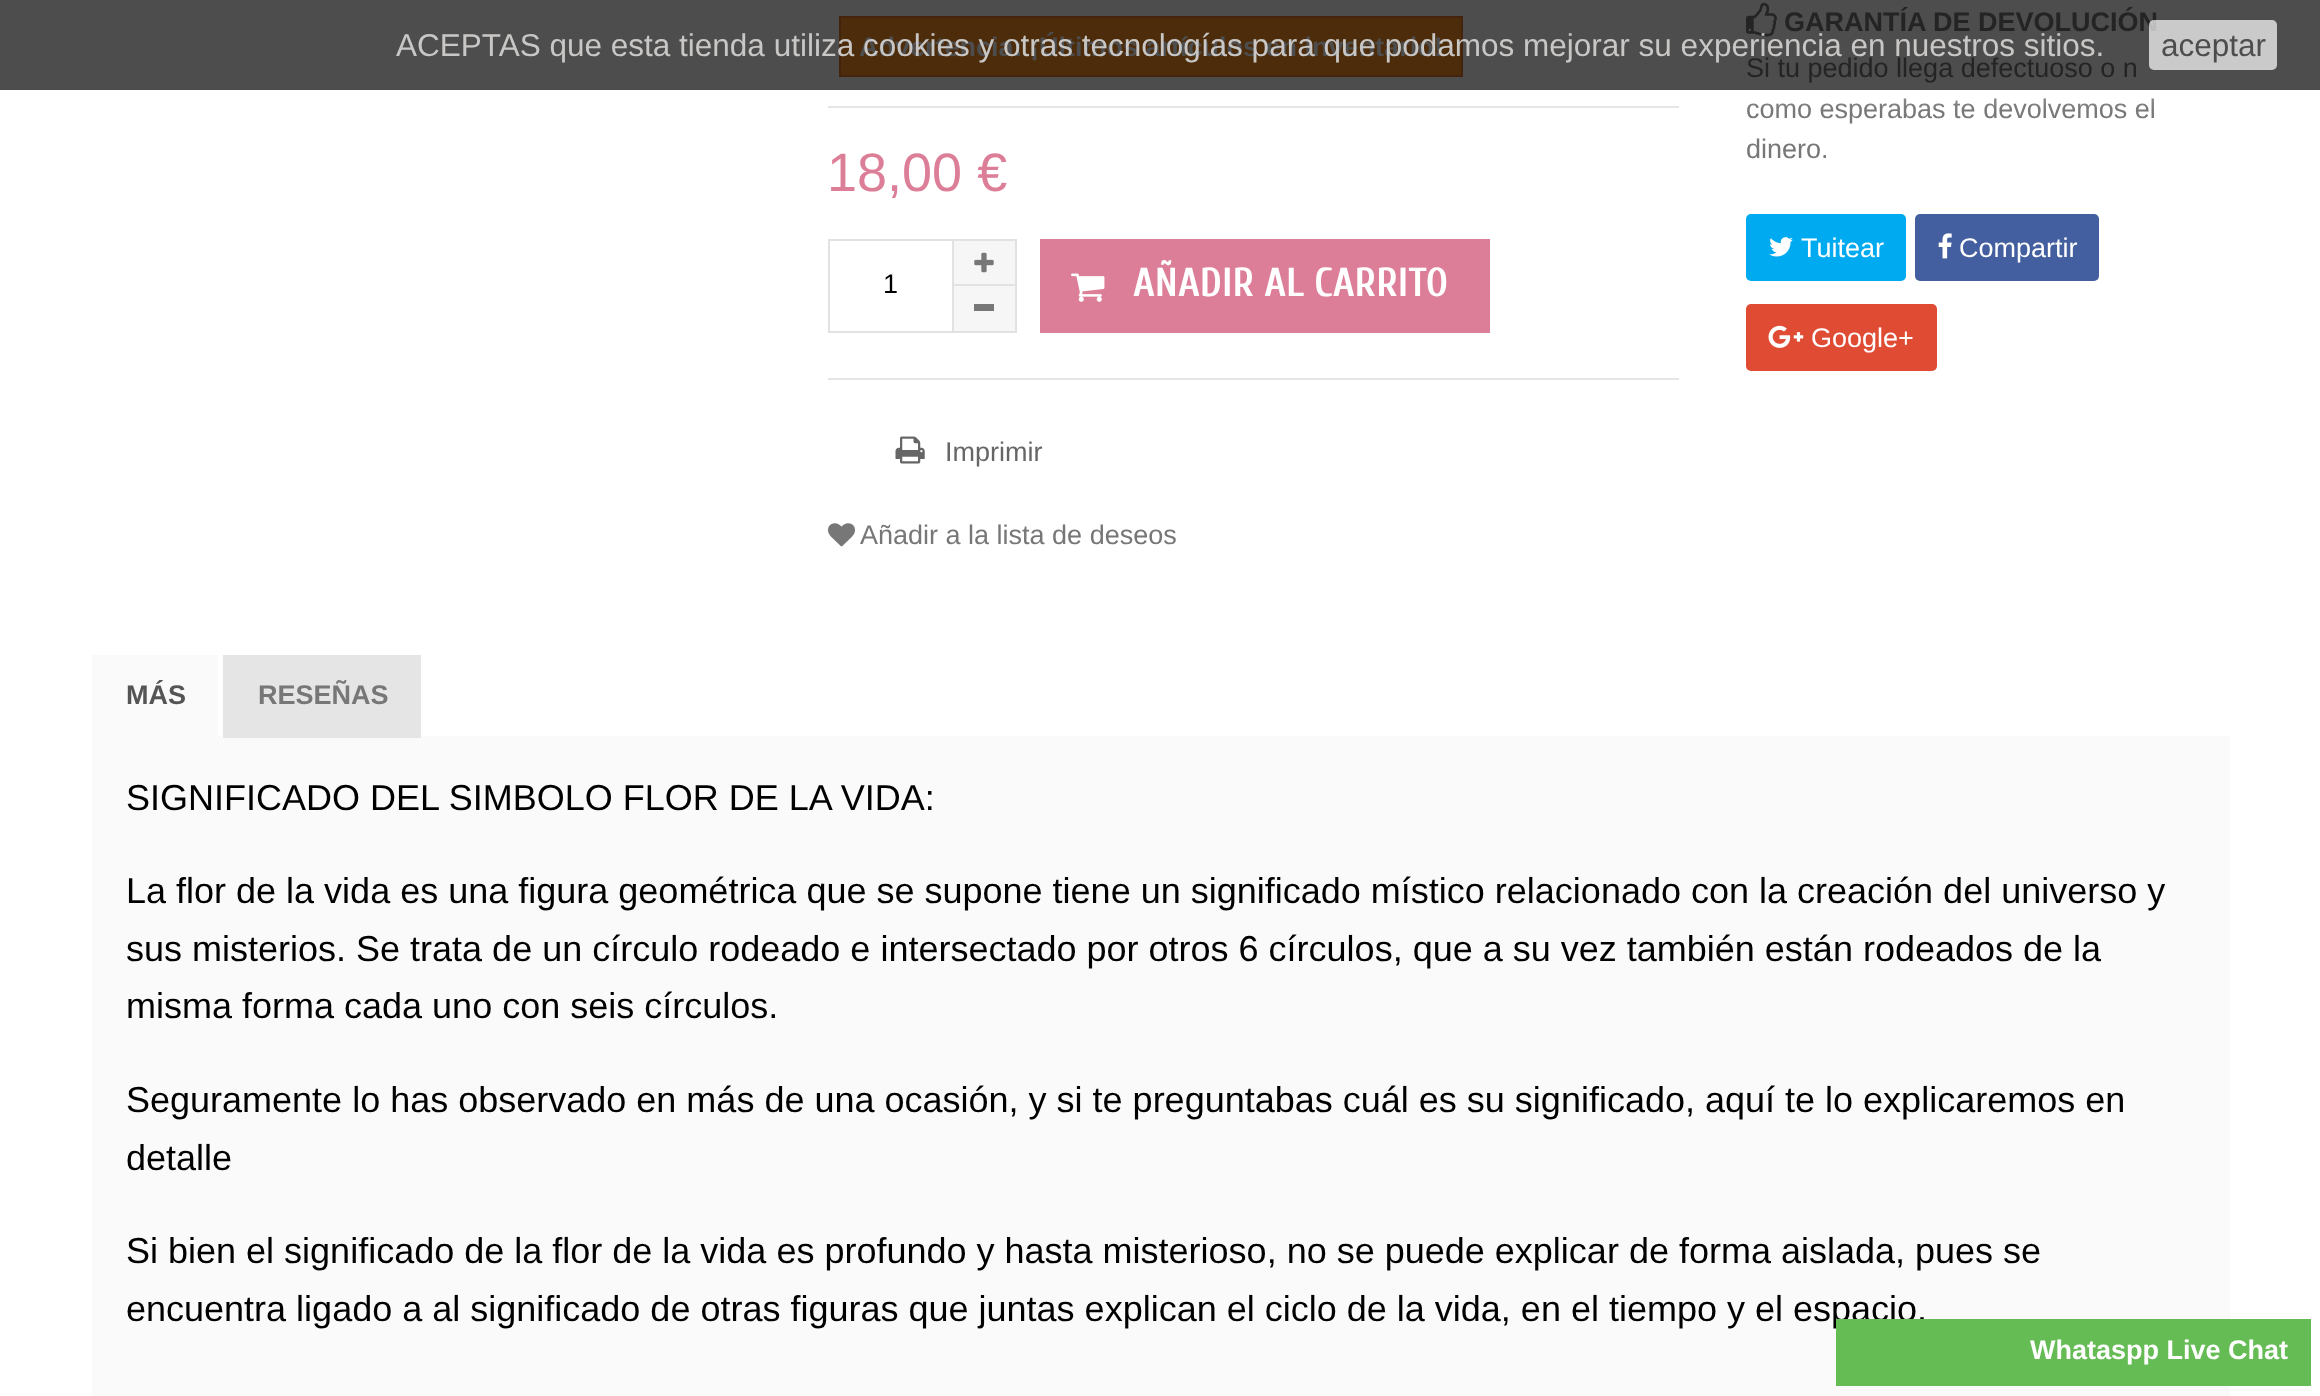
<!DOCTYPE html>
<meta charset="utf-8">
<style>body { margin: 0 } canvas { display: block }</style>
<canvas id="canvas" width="2320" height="1396"></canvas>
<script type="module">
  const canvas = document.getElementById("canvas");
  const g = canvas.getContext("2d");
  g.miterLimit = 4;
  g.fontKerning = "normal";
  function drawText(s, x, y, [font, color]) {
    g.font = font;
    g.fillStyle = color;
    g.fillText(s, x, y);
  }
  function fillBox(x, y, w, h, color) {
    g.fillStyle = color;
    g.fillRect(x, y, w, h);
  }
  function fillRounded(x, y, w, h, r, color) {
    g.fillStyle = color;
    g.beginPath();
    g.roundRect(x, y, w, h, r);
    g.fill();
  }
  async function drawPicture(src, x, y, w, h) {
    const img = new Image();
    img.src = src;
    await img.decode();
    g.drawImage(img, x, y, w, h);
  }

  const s1 = ["bold 27px Liberation Sans", "#4D4D4D"];
  const s2 = ["54px Liberation Sans", "#DD7E98"];
  const s3 = ["27px Liberation Sans", "#000000"];
  const s4 = ["bold 40.5px Cuprum", "#FFFFFF"];
  const s5 = ["27px Liberation Sans", "#666666"];
  const s6 = ["27px Liberation Sans", "#777777"];
  const s7 = ["bold 27px Liberation Sans", "#242424"];
  const s8 = ["27px Liberation Sans", "#242424"];
  const s9 = ["27px Liberation Sans", "#FFFFFF"];
  const s10 = ["bold 27px Liberation Sans", "#555555"];
  const s11 = ["bold 27px Liberation Sans", "#777777"];
  const s12 = ["36px Liberation Sans", "#000000"];
  const s13 = ["bold 27px Liberation Sans", "#FFFFFF"];
  const s14 = ["31.5px Liberation Sans", "#C9C7C5"];
  const s15 = ["31.5px Liberation Sans", "#4D4D4D"];

  fillBox(0, 0, 2320, 1396, "#FFFFFF");
  fillBox(0, 0, 2320, 90, "#4D4D4D");
  g.fillStyle = "#4C2C0B";
  g.beginPath();
  g.rect(840, 17, 622, 59);
  g.fill();
  g.strokeStyle = "#44230D";
  g.lineWidth = 2;
  g.stroke();
  drawText("Advertencia: ¡Últimos artículos en inventario!", 859, 56, s1);
  fillBox(828, 106, 851, 2, "#E5E5E5");
  drawText("18,00 €", 827, 191, s2);
  fillBox(828, 378, 851, 2, "#E5E5E5");
  g.strokeStyle = "#E2E2E2";
  g.strokeRect(829, 240, 124, 92);
  drawText("1", 883, 293, s3);
  fillBox(954, 241, 61, 43, "#F6F6F6");
  fillBox(954, 239, 63, 2, "#E2E2E2");
  fillBox(1015, 239, 2, 47, "#E2E2E2");
  fillBox(954, 284, 63, 2, "#E2E2E2");
  await drawPicture("pic1.png", 974, 252, 20, 21);
  fillBox(954, 286, 61, 45, "#F6F6F6");
  fillBox(1015, 286, 2, 47, "#E2E2E2");
  fillBox(954, 331, 63, 2, "#E2E2E2");
  fillBox(974, 304, 20, 7, "#777777");
  fillBox(1040, 239, 450, 94, "#DD7E98");
  await drawPicture("pic2.png", 1071, 273, 34, 29);
  drawText("AÑADIR AL CARRITO", 1133, 296, s4);
  await drawPicture("pic3.png", 895, 436, 30, 28);
  drawText("Imprimir", 945, 461, s5);
  await drawPicture("pic4.png", 828, 523, 27, 24);
  drawText("Añadir a la lista de deseos", 860, 544, s6);
  await drawPicture("pic5.png", 1746, 2, 31, 35);
  drawText("GARANTÍA DE DEVOLUCIÓN", 1784, 31, s7);
  drawText("Si tu pedido llega defectuoso o n", 1746, 77, s8);
  drawText("como esperabas te devolvemos el", 1746, 118, s6);
  drawText("dinero.", 1746, 158, s6);
  fillRounded(1746, 214, 160, 67, 5, "#00AAF0");
  await drawPicture("pic6.png", 1769, 237, 24, 20);
  drawText("Tuitear", 1801, 257, s9);
  fillRounded(1915, 214, 184, 67, 5, "#435F9F");
  await drawPicture("pic7.png", 1938, 233, 14, 26);
  drawText("Compartir", 1959, 257, s9);
  fillRounded(1746, 304, 191, 67, 5, "#E04B34");
  await drawPicture("pic8.png", 1768, 325, 36, 23);
  drawText("Google+", 1811, 347, s9);
  fillBox(92, 655, 126, 81, "#FAFAFA");
  drawText("MÁS", 126, 704, s10);
  fillBox(92, 736, 2138, 660, "#FAFAFA");
  fillBox(223, 655, 198, 83, "#E5E5E5");
  drawText("RESEÑAS", 258, 704, s11);
  drawText("SIGNIFICADO DEL SIMBOLO FLOR DE LA VIDA:", 126, 810, s12);
  drawText("La flor de la vida es una figura geométrica que se supone tiene un significado místico relacionado con la creación del universo y", 126, 903, s12);
  drawText("sus misterios. Se trata de un círculo rodeado e intersectado por otros 6 círculos, que a su vez también están rodeados de la", 126, 961, s12);
  drawText("misma forma cada uno con seis círculos.", 126, 1018, s12);
  drawText("Seguramente lo has observado en más de una ocasión, y si te preguntabas cuál es su significado, aquí te lo explicaremos en", 126, 1112, s12);
  drawText("detalle", 126, 1170, s12);
  drawText("Si bien el significado de la flor de la vida es profundo y hasta misterioso, no se puede explicar de forma aislada, pues se", 126, 1263, s12);
  drawText("encuentra ligado a al significado de otras figuras que juntas explican el ciclo de la vida, en el tiempo y el espacio.", 126, 1321, s12);
  fillBox(1836, 1319, 475, 67, "#65BC54");
  drawText("Whataspp Live Chat", 2030, 1359, s13);
  g.save();
  g.beginPath();
  g.rect(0, 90, 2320, 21);
  g.clip();
  g.fillStyle = "rgba(255, 255, 255, 0.7)";
  g.filter = "blur(11px)";
  g.beginPath();
  g.rect(0, 0, 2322, 90);
  g.fill();
  g.filter = "none";
  g.restore();
  drawText("ACEPTAS que esta tienda utiliza cookies y otras tecnologías para que podamos mejorar su experiencia en nuestros sitios.", 396, 56, s14);
  fillRounded(2149, 20, 128, 50, 5, "rgba(255, 255, 255, 0.7)");
  drawText("aceptar", 2161, 56, s15);
</script>
